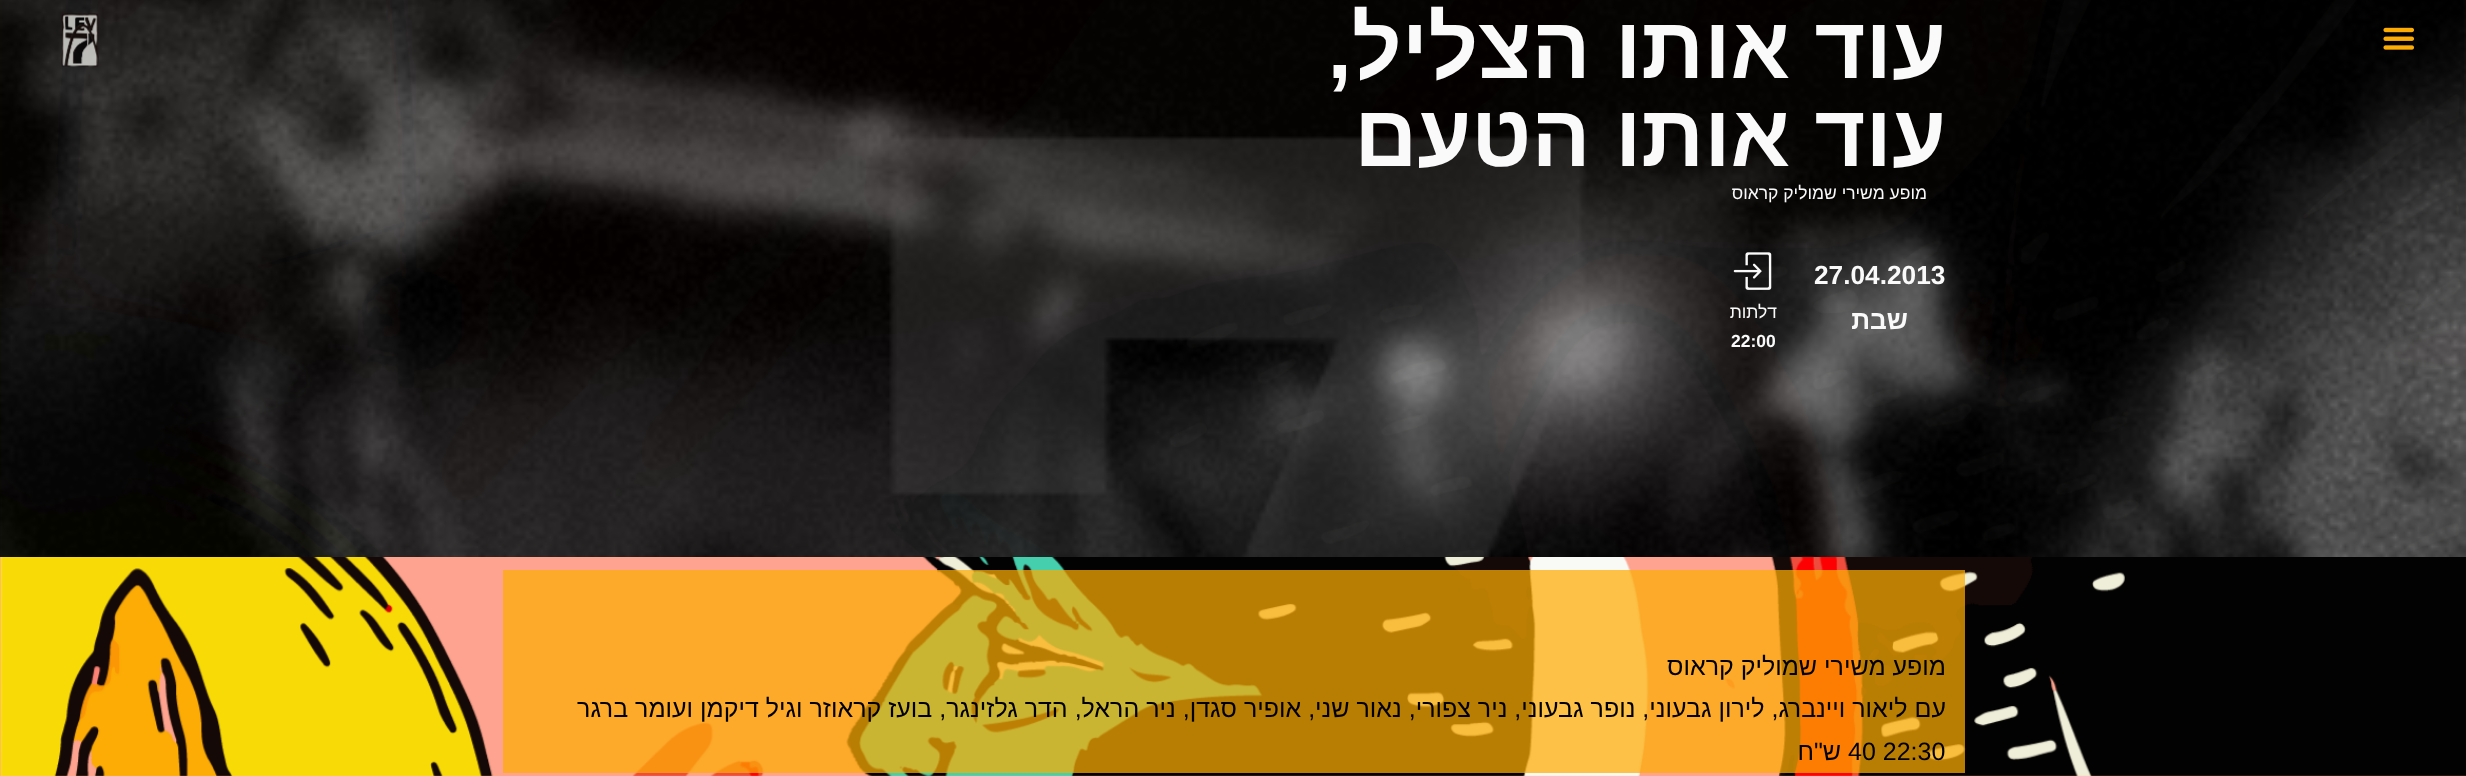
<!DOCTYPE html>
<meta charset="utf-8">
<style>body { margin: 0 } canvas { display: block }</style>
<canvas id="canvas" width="2466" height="776"></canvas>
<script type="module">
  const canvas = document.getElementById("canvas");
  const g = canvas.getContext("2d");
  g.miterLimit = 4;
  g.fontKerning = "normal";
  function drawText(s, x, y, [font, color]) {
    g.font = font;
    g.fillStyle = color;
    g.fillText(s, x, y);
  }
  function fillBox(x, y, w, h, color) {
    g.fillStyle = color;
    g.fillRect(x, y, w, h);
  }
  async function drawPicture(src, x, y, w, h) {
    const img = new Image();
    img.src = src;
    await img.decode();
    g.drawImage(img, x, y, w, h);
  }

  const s1 = ["bold 87.5px Liberation Sans", "#FAFAFA"];
  const s2 = ["17.5px Liberation Sans", "#FAFAFA"];
  const s3 = ["bold 26.25px Liberation Sans", "#FAFAFA"];
  const s4 = ["bold 17.5px Liberation Sans", "#FAFAFA"];
  const s5 = ["25px Liberation Sans", "#000000"];

  fillBox(0, 0, 2466, 776, "#FDC247");
  await drawPicture("pic1.png", 0, 0, 2466, 776);
  await drawPicture("pic2.png", 0, 0, 2466, 557);
  g.direction = "rtl";
  drawText("עוד אותו הצליל,", 1946, 78, s1);
  drawText("עוד אותו הטעם", 1946, 166, s1);
  drawText("מופע משירי שמוליק קראוס", 1927, 199, s2);
  g.direction = "ltr";
  drawText("27.04.2013", 1814, 284, s3);
  g.direction = "rtl";
  drawText("שבת", 1908, 329, s3);
  await drawPicture("pic3.png", 1733, 252, 39, 38);
  drawText("דלתות", 1777, 318, s2);
  g.direction = "ltr";
  drawText("22:00", 1731, 347, s4);
  fillBox(503, 570, 1462, 203, "rgba(252, 172, 4, 0.73)");
  g.direction = "rtl";
  drawText("מופע משירי שמוליק קראוס", 1946, 675, s5);
  drawText("עם ליאור ויינברג, לירון גבעוני, נופר גבעוני, ניר צפורי, נאור שני, אופיר סגדן, ניר הראל, הדר גלזינגר, בועז קראוזר וגיל דיקמן ועומר ברגר", 1946, 717, s5);
  g.direction = "ltr";
  drawText("40 22:30", 1848, 760, s5);
  g.direction = "rtl";
  drawText("ש\"ח", 1841, 760, s5);
  await drawPicture("pic4.png", 2383, 27, 31, 23);
  await drawPicture("pic5.png", 61, 13, 38, 54);
</script>
